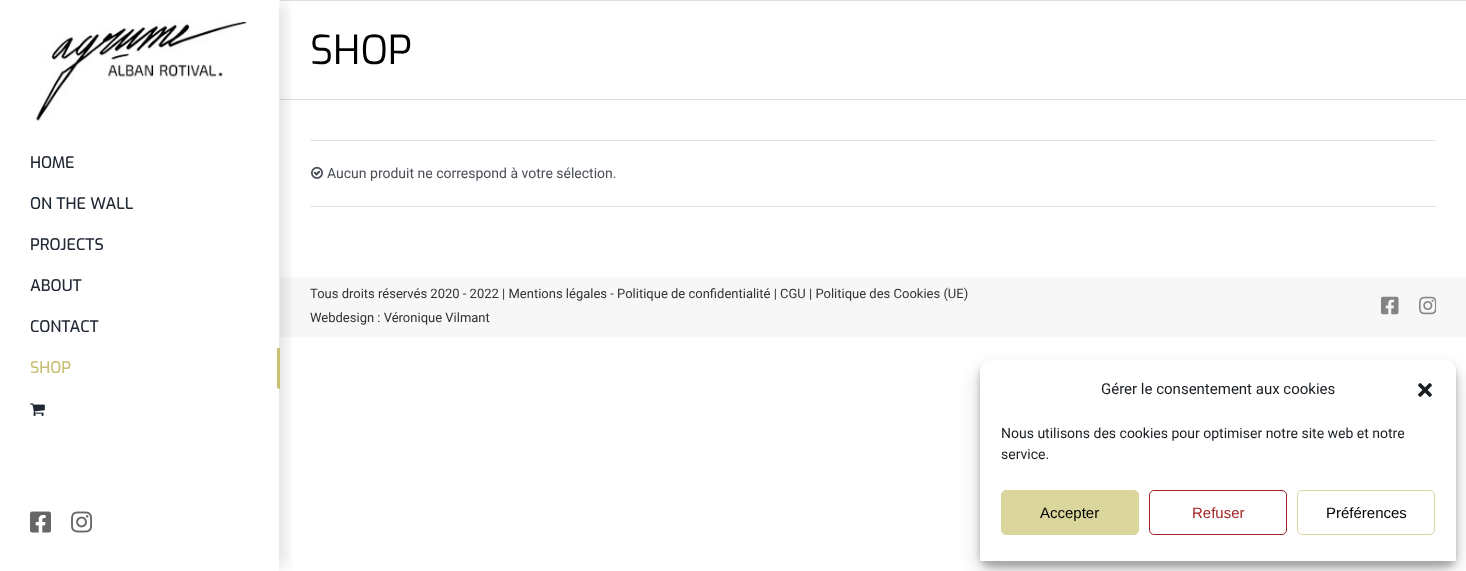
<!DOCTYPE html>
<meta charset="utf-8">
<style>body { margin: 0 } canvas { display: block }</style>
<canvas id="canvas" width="1466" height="571"></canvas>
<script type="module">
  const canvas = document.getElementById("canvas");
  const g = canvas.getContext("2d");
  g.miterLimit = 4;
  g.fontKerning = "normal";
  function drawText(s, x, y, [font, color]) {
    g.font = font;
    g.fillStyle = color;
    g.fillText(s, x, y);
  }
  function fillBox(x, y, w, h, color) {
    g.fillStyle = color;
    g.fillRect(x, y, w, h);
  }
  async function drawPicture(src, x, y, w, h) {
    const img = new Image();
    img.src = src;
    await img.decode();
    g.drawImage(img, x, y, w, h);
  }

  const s1 = ["40px Exo", "#000000"];
  const s2 = ["500 16px Exo", "#212934"];
  const s3 = ["500 16px Exo", "#C8BF70"];
  const s4 = ["14px Roboto", "#4A4E57"];
  const s5 = ["13px Roboto", "#333333"];
  const s6 = ["15px Roboto", "#191E23"];
  const s7 = ["14px Roboto", "#191E23"];
  const s8 = ["15px Liberation Sans", "#000000"];
  const s9 = ["15px Liberation Sans", "#A32525"];

  fillBox(0, 0, 1466, 571, "#FFFFFF");
  fillBox(280, 0, 1186, 1, "#DDDDDD");
  fillBox(280, 99, 1186, 1, "#DDDDDD");
  drawText("SHOP", 310, 64, s1);
  fillBox(280, 277, 1186, 60, "#F7F7F7");
  g.save();
  g.beginPath();
  g.rect(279, 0, 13, 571);
  g.clip();
  g.fillStyle = "rgba(0, 0, 0, 0.14)";
  g.filter = "blur(7.5px)";
  g.beginPath();
  g.rect(269, 5, 15, 561);
  g.fill();
  g.filter = "none";
  g.restore();
  await drawPicture("pic1.png", 33, 21, 214, 101);
  drawText("HOME", 30, 168, s2);
  drawText("ON THE WALL", 30, 209, s2);
  drawText("PROJECTS", 30, 250, s2);
  drawText("ABOUT", 30, 291, s2);
  drawText("CONTACT", 30, 332, s2);
  g.fillStyle = "#C8BF70";
  g.beginPath();
  g.moveTo(280, 348);
  g.lineTo(280, 389);
  g.lineTo(277, 388);
  g.lineTo(277, 348);
  g.closePath();
  g.fill();
  drawText("SHOP", 30, 373, s3);
  await drawPicture("pic2.png", 30, 403, 15, 13);
  await drawPicture("pic3.png", 30, 511, 21, 22);
  await drawPicture("pic4.png", 71, 511, 22, 22);
  fillBox(310, 140, 1126, 1, "#E2E2E2");
  fillBox(310, 206, 1126, 1, "#E2E2E2");
  await drawPicture("pic5.png", 311, 166, 12, 13);
  drawText("Aucun produit ne correspond à votre sélection.", 327, 178, s4);
  drawText("Tous droits réservés 2020 - 2022 | Mentions légales - Politique de confidentialité | CGU | Politique des Cookies (UE)", 310, 298, s5);
  drawText("Webdesign : Véronique Vilmant", 310, 322, s5);
  await drawPicture("pic6.png", 1381, 296, 18, 19);
  await drawPicture("pic7.png", 1419, 296, 17, 19);
  g.fillStyle = "rgba(0, 0, 0, 0.23)";
  g.filter = "blur(3px)";
  g.beginPath();
  g.roundRect(980, 366, 476, 201, 10);
  g.fill();
  g.filter = "none";
  g.fillStyle = "rgba(0, 0, 0, 0.19)";
  g.filter = "blur(10px)";
  g.beginPath();
  g.roundRect(980, 370, 476, 201, 10);
  g.fill();
  g.filter = "none";
  g.fillStyle = "#FFFFFF";
  g.beginPath();
  g.roundRect(980.5, 360.5, 475, 200, [9.5, 9.5, 0, 0]);
  g.fill();
  g.strokeStyle = "#FFFFFF";
  g.stroke();
  drawText("Gérer le consentement aux cookies", 1101, 394, s6);
  await drawPicture("pic8.png", 1418, 383, 14, 14);
  drawText("Nous utilisons des cookies pour optimiser notre site web et notre", 1001, 438, s7);
  drawText("service.", 1001, 459, s7);
  g.fillStyle = "#DAD69C";
  g.beginPath();
  g.roundRect(1001.5, 490.5, 137, 44, 4.5);
  g.fill();
  g.strokeStyle = "#DAD69C";
  g.stroke();
  drawText("Accepter", 1040, 518, s8);
  g.beginPath();
  g.roundRect(1149.5, 490.5, 137, 44, 4.5);
  g.strokeStyle = "#A32525";
  g.stroke();
  drawText("Refuser", 1192, 518, s9);
  g.beginPath();
  g.roundRect(1297.5, 490.5, 137, 44, 4.5);
  g.strokeStyle = "#DAD69C";
  g.stroke();
  drawText("Préférences", 1326, 518, s8);
</script>
